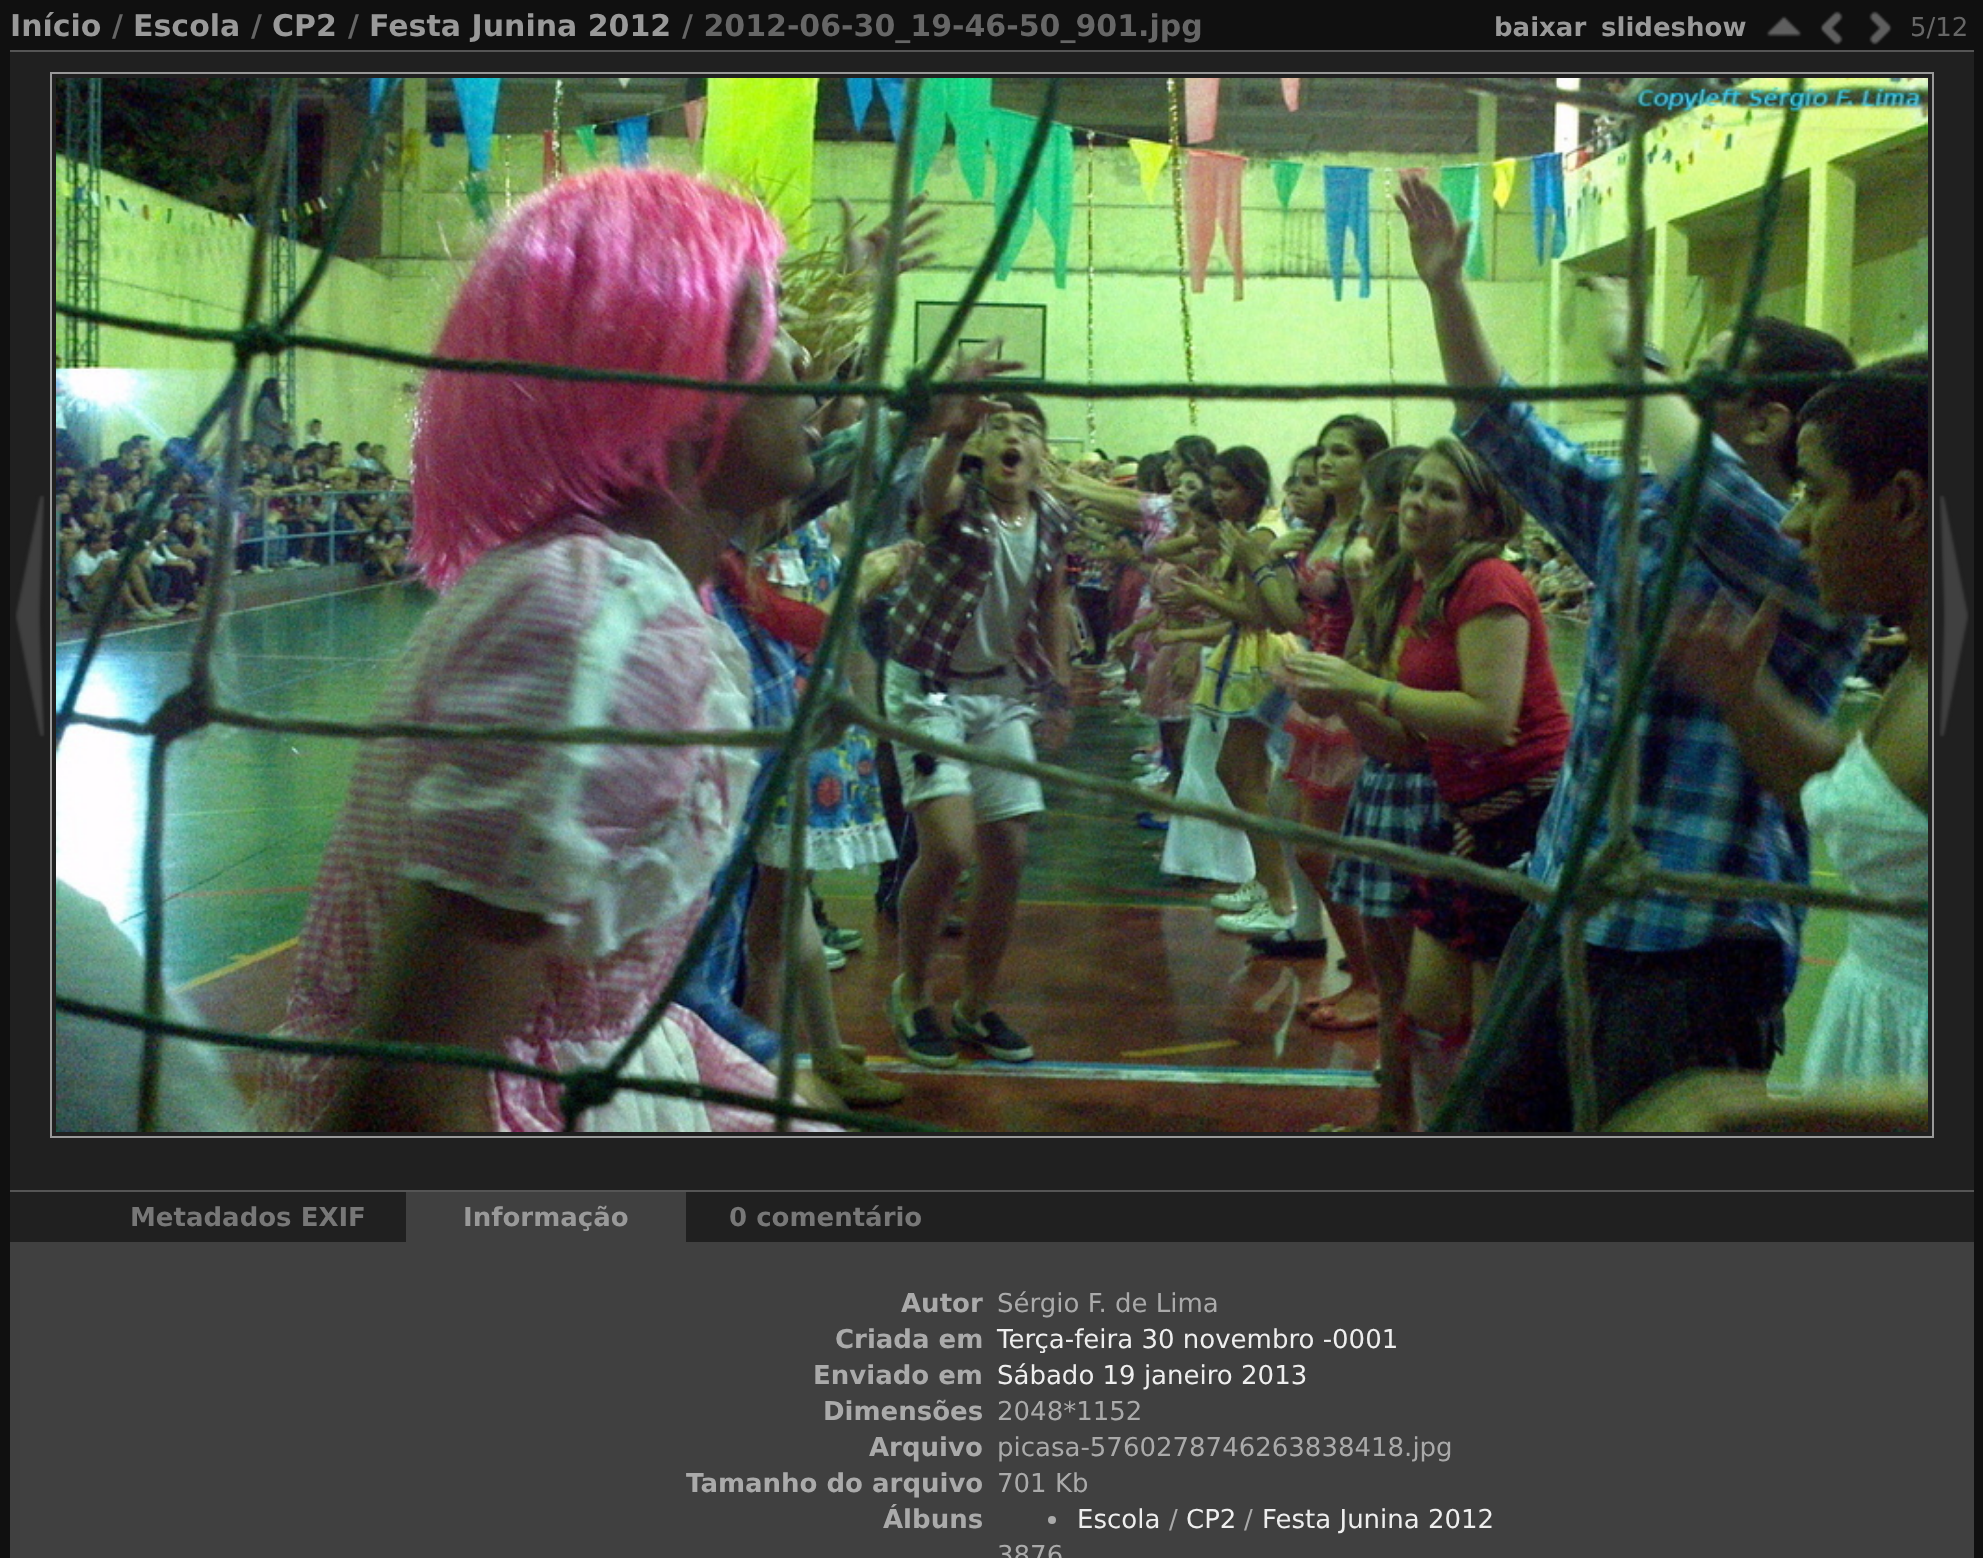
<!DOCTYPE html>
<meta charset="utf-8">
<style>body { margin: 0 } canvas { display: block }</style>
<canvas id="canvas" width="1983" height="1558"></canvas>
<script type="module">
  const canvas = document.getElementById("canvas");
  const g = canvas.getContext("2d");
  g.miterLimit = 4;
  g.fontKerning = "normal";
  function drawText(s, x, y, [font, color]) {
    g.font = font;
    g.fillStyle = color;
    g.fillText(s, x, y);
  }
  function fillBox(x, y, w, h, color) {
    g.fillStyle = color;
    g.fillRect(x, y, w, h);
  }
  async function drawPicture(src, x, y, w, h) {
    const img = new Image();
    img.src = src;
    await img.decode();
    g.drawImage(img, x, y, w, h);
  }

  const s1 = ["bold 30px DejaVu Sans", "#999999"];
  const s2 = ["bold 30px DejaVu Sans", "#666666"];
  const s3 = ["bold 26px DejaVu Sans", "#999999"];
  const s4 = ["26px DejaVu Sans", "#666666"];
  const s5 = ["bold 26px DejaVu Sans", "#777777"];
  const s6 = ["bold 26px DejaVu Sans", "#AAAAAA"];
  const s7 = ["26px DejaVu Sans", "#AAAAAA"];
  const s8 = ["26px DejaVu Sans", "#EEEEEE"];

  fillBox(0, 0, 1983, 1558, "#101010");
  drawText("Início", 10, 36, s1);
  drawText("/", 112, 36, s2);
  drawText("Escola", 133, 36, s1);
  drawText("/", 251, 36, s2);
  drawText("CP2", 272, 36, s1);
  drawText("/", 348, 36, s2);
  drawText("Festa Junina 2012", 369, 36, s1);
  drawText("/ 2012-06-30_19-46-50_901.jpg", 682, 36, s2);
  drawText("baixar", 1494, 36, s3);
  drawText("slideshow", 1601, 36, s3);
  await drawPicture("pic1.png", 1766, 16, 36, 21);
  await drawPicture("pic2.png", 1820, 11, 23, 34);
  await drawPicture("pic3.png", 1869, 11, 23, 34);
  drawText("5/12", 1910, 36, s4);
  fillBox(10, 52, 1964, 1190, "#202020");
  fillBox(10, 50, 1964, 2, "#555555");
  await drawPicture("pic4.png", 15, 495, 30, 242);
  g.strokeStyle = "#999999";
  g.lineWidth = 2;
  g.strokeRect(51, 73, 1882, 1064);
  await drawPicture("pic5.png", 56, 78, 1872, 1054);
  await drawPicture("pic6.png", 1939, 495, 30, 242);
  fillBox(10, 1190, 1964, 2, "#555555");
  drawText("Metadados EXIF", 130, 1226, s5);
  fillBox(406, 1192, 280, 50, "#404040");
  drawText("Informação", 463, 1226, s3);
  drawText("0 comentário", 729, 1226, s5);
  fillBox(10, 1242, 1964, 316, "#404040");
  drawText("Autor", 901, 1312, s6);
  drawText("Sérgio F. de Lima", 997, 1312, s7);
  drawText("Criada em", 835, 1348, s6);
  drawText("Terça-feira 30 novembro -0001", 997, 1348, s8);
  drawText("Enviado em", 813, 1384, s6);
  drawText("Sábado 19 janeiro 2013", 997, 1384, s8);
  drawText("Dimensões", 823, 1420, s6);
  drawText("2048*1152", 997, 1420, s7);
  drawText("Arquivo", 869, 1456, s6);
  drawText("picasa-5760278746263838418.jpg", 997, 1456, s7);
  drawText("Tamanho do arquivo", 686, 1492, s6);
  drawText("701 Kb", 997, 1492, s7);
  drawText("Álbuns", 883, 1528, s6);
  g.beginPath();
  g.arc(1052, 1520, 4, 0, Math.PI * 2);
  g.fill();
  drawText("Escola", 1077, 1528, s8);
  drawText("/", 1169, 1528, s7);
  drawText("CP2", 1186, 1528, s8);
  drawText("/", 1244, 1528, s7);
  drawText("Festa Junina 2012", 1262, 1528, s8);
  drawText("3876", 997, 1564, s7);
</script>
